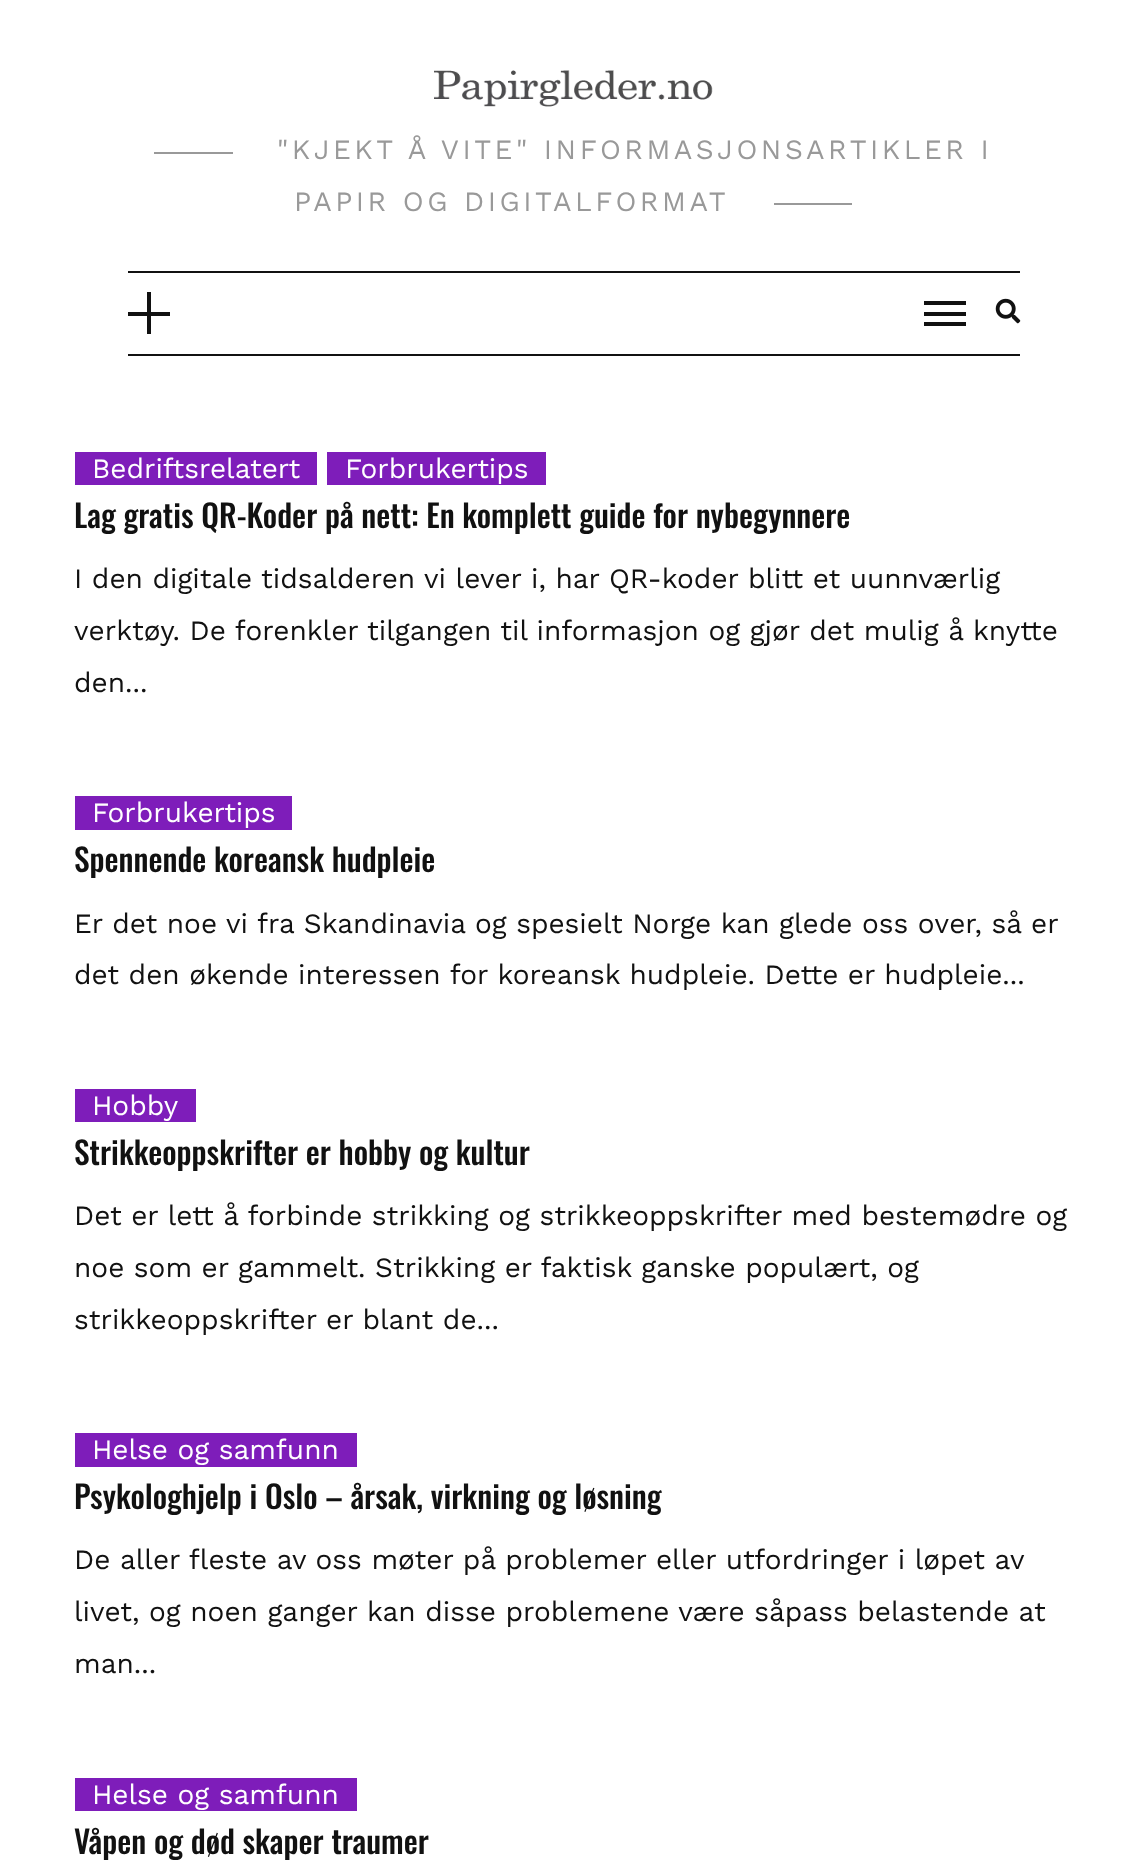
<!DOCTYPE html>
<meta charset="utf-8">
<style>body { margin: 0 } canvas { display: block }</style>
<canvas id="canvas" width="1145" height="1875"></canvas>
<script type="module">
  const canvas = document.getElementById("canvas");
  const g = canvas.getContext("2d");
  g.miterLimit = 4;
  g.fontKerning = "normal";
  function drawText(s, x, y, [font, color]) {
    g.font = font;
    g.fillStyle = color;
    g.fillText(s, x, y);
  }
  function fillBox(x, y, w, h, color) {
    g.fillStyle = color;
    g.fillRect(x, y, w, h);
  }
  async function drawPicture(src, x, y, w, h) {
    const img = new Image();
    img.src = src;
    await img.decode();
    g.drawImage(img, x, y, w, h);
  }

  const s1 = ["28px Work Sans", "#999999"];
  const s2 = ["28px Work Sans", "#FFFFFF"];
  const s3 = ["500 31.5px Oswald", "#111111"];
  const s4 = ["28px Work Sans", "#111111"];

  fillBox(0, 0, 1145, 1875, "#FFFFFF");
  await drawPicture("pic1.png", 434, 70, 279, 37);
  fillBox(154, 152, 79, 2, "#999999");
  g.letterSpacing = "3.5px";
  drawText("\"KJEKT Å VITE\" INFORMASJONSARTIKLER I", 277, 159, s1);
  drawText("PAPIR OG DIGITALFORMAT", 294, 211, s1);
  fillBox(774, 203, 78, 2, "#999999");
  fillBox(128, 271, 892, 2, "#111111");
  fillBox(128, 354, 892, 2, "#111111");
  fillBox(128, 312, 42, 4, "#111111");
  fillBox(147, 292, 4, 42, "#111111");
  fillBox(924, 301, 42, 4, "#111111");
  fillBox(924, 312, 42, 4, "#111111");
  fillBox(924, 322, 42, 4, "#111111");
  await drawPicture("pic2.png", 995, 298, 26, 26);
  fillBox(75, 452, 242, 33, "#7E1DBA");
  g.letterSpacing = "0px";
  drawText("Bedriftsrelatert", 92, 478, s2);
  fillBox(327, 452, 219, 33, "#7E1DBA");
  drawText("Forbrukertips", 345, 478, s2);
  drawText("Lag gratis QR-Koder på nett: En komplett guide for nybegynnere", 74, 528, s3);
  drawText("I den digitale tidsalderen vi lever i, har QR-koder blitt et uunnværlig", 74, 588, s4);
  drawText("verktøy. De forenkler tilgangen til informasjon og gjør det mulig å knytte", 74, 640, s4);
  drawText("den...", 74, 692, s4);
  fillBox(75, 796, 217, 34, "#7E1DBA");
  drawText("Forbrukertips", 92, 822, s2);
  drawText("Spennende koreansk hudpleie", 74, 872, s3);
  drawText("Er det noe vi fra Skandinavia og spesielt Norge kan glede oss over, så er", 74, 933, s4);
  drawText("det den økende interessen for koreansk hudpleie. Dette er hudpleie...", 74, 984, s4);
  fillBox(75, 1089, 121, 33, "#7E1DBA");
  drawText("Hobby", 92, 1115, s2);
  drawText("Strikkeoppskrifter er hobby og kultur", 74, 1165, s3);
  drawText("Det er lett å forbinde strikking og strikkeoppskrifter med bestemødre og", 74, 1225, s4);
  drawText("noe som er gammelt. Strikking er faktisk ganske populært, og", 74, 1277, s4);
  drawText("strikkeoppskrifter er blant de...", 74, 1329, s4);
  fillBox(75, 1433, 282, 34, "#7E1DBA");
  drawText("Helse og samfunn", 92, 1459, s2);
  drawText("Psykologhjelp i Oslo – årsak, virkning og løsning", 74, 1509, s3);
  drawText("De aller fleste av oss møter på problemer eller utfordringer i løpet av", 74, 1569, s4);
  drawText("livet, og noen ganger kan disse problemene være såpass belastende at", 74, 1621, s4);
  drawText("man...", 74, 1673, s4);
  fillBox(75, 1778, 282, 33, "#7E1DBA");
  drawText("Helse og samfunn", 92, 1804, s2);
  drawText("Våpen og død skaper traumer", 74, 1854, s3);
</script>
